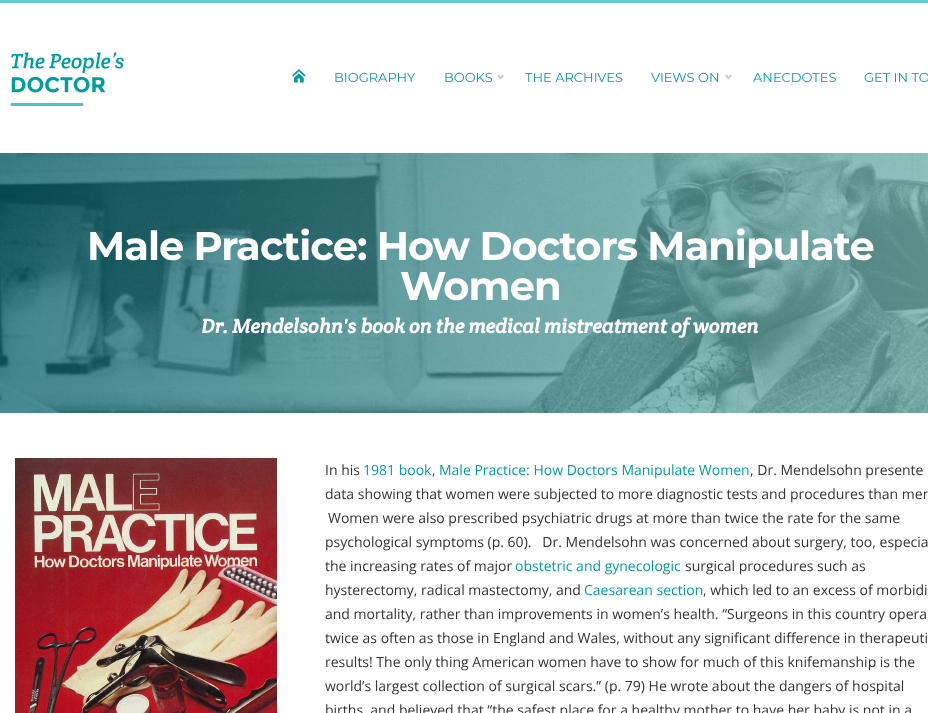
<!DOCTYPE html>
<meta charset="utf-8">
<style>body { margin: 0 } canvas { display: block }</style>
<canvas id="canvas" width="928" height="713"></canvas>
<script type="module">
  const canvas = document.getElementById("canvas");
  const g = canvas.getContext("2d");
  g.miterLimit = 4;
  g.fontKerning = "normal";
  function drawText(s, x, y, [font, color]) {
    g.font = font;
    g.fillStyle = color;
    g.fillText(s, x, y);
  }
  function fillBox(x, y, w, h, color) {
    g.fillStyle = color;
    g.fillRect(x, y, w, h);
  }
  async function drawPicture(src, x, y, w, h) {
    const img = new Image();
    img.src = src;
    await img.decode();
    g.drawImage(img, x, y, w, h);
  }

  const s1 = ["13px Montserrat", "#009E9E"];
  const s2 = ["bold 40px Montserrat", "#FFFFFF"];
  const s3 = ["italic bold 20px Crete Round", "#FFFFFF"];
  const s4 = ["14px Open Sans", "#333333"];
  const s5 = ["14px Open Sans", "#009E9E"];

  fillBox(0, 0, 928, 713, "#FFFFFF");
  fillBox(0, 0, 928, 3, "#66CCCC");
  await drawPicture("pic1.png", 10, 52, 114, 54);
  await drawPicture("pic2.png", 292, 69, 14, 14);
  drawText("BIOGRAPHY", 334, 82, s1);
  drawText("BOOKS", 444, 82, s1);
  await drawPicture("pic3.png", 497, 74, 7, 6);
  drawText("THE ARCHIVES", 525, 82, s1);
  drawText("VIEWS ON", 651, 82, s1);
  await drawPicture("pic3.png", 725, 74, 7, 6);
  drawText("ANECDOTES", 753, 82, s1);
  drawText("GET IN TO", 864, 82, s1);
  await drawPicture("pic4.png", 0, 153, 928, 260);
  g.letterSpacing = "-1px";
  drawText("Male Practice: How Doctors Manipulate", 87, 260, s2);
  drawText("Women", 400, 300, s2);
  g.letterSpacing = "0px";
  drawText("Dr. Mendelsohn's book on the medical mistreatment of women", 201, 333, s3);
  await drawPicture("pic5.png", 15, 458, 262, 255);
  drawText("In his", 325, 475, s4);
  drawText("1981 book", 363, 475, s5);
  drawText(",", 432, 475, s4);
  drawText("Male Practice: How Doctors Manipulate Women", 439, 475, s5);
  drawText(", Dr. Mendelsohn presente", 750, 475, s4);
  drawText("data showing that women were subjected to more diagnostic tests and procedures than men", 325, 499, s4);
  drawText("Women were also prescribed psychiatric drugs at more than twice the rate for the same", 328, 523, s4);
  drawText("psychological symptoms (p. 60).   Dr. Mendelsohn was concerned about surgery, too, especia", 325, 547, s4);
  drawText("the increasing rates of major", 325, 571, s4);
  drawText("obstetric and gynecologic", 515, 571, s5);
  drawText("surgical procedures such as", 685, 571, s4);
  drawText("hysterectomy, radical mastectomy, and", 325, 595, s4);
  drawText("Caesarean section", 584, 595, s5);
  drawText(", which led to an excess of morbidi", 703, 595, s4);
  drawText("and mortality, rather than improvements in women’s health. “Surgeons in this country opera", 325, 619, s4);
  drawText("twice as often as those in England and Wales, without any significant difference in therapeuti", 325, 643, s4);
  drawText("results! The only thing American women have to show for much of this knifemanship is the", 325, 667, s4);
  drawText("world’s largest collection of surgical scars.” (p. 79) He wrote about the dangers of hospital", 325, 691, s4);
  drawText("births, and believed that “the safest place for a healthy mother to have her baby is not in a", 325, 715, s4);
</script>
